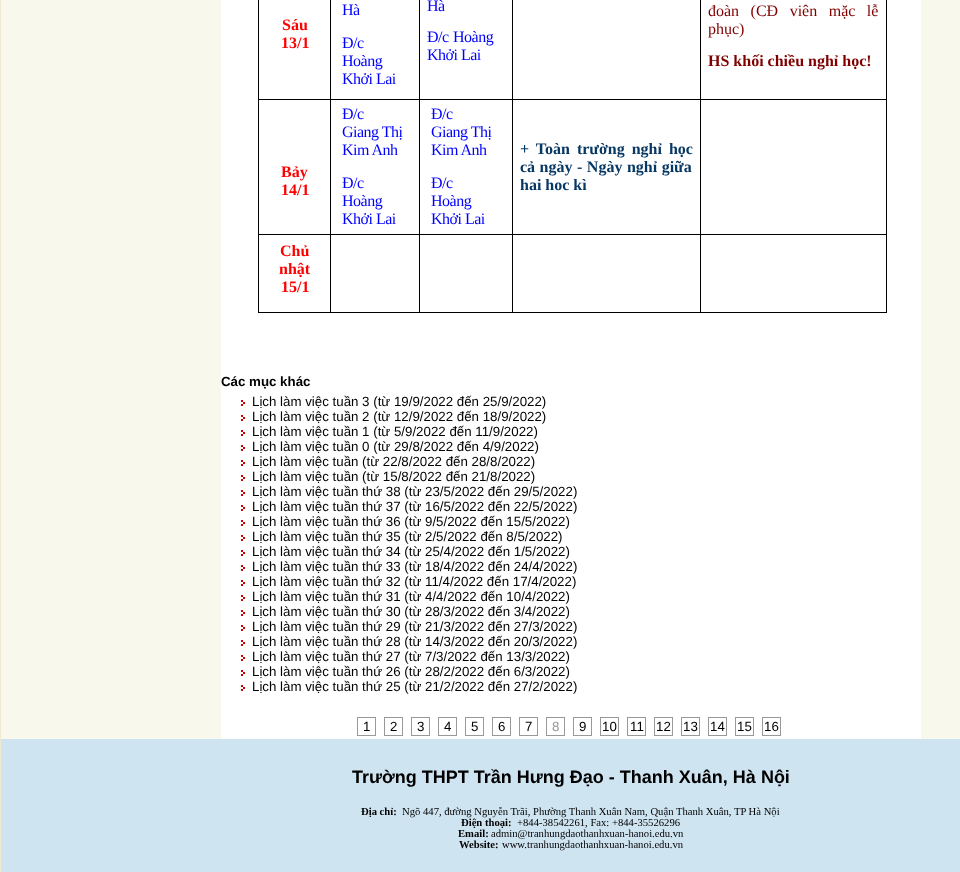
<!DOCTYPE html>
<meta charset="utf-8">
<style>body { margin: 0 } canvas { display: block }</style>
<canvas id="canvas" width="960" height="872"></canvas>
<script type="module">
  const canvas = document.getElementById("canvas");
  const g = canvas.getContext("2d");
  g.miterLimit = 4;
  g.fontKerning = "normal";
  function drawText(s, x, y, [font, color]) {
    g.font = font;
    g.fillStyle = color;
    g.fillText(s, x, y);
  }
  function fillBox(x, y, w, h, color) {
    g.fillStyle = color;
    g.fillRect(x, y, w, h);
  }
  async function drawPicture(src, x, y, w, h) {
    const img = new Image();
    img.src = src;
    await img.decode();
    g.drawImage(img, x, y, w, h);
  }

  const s1 = ["bold 16px Liberation Serif", "#FF0000"];
  const s2 = ["16px Liberation Serif", "#0000FF"];
  const s3 = ["16px Liberation Serif", "#800000"];
  const s4 = ["bold 16px Liberation Serif", "#800000"];
  const s5 = ["bold 16px Liberation Serif", "#073763"];
  const s6 = ["bold 13.3px Liberation Sans", "#000000"];
  const s7 = ["13.3px Liberation Sans", "#000000"];
  const s8 = ["13.3px Liberation Sans", "#999999"];
  const s9 = ["bold 18px Liberation Sans", "#000000"];
  const s10 = ["bold 10.65px Liberation Serif", "#000000"];
  const s11 = ["10.65px Liberation Serif", "#000000"];

  fillBox(0, 0, 960, 872, "#F0EAD2");
  fillBox(1, 0, 959, 739, "#F9F8EC");
  fillBox(221, 0, 700, 739, "#FFFFFF");
  fillBox(886, 0, 1, 313, "#000000");
  fillBox(700, 312, 187, 1, "#000000");
  fillBox(700, 234, 1, 79, "#000000");
  fillBox(700, 234, 187, 1, "#000000");
  fillBox(700, 99, 1, 136, "#000000");
  fillBox(700, 99, 187, 1, "#000000");
  fillBox(700, 0, 1, 100, "#000000");
  fillBox(512, 312, 189, 1, "#000000");
  fillBox(512, 234, 1, 79, "#000000");
  fillBox(512, 234, 189, 1, "#000000");
  fillBox(512, 99, 1, 136, "#000000");
  fillBox(512, 99, 189, 1, "#000000");
  fillBox(512, 0, 1, 100, "#000000");
  fillBox(419, 312, 94, 1, "#000000");
  fillBox(419, 234, 1, 79, "#000000");
  fillBox(419, 234, 94, 1, "#000000");
  fillBox(419, 99, 1, 136, "#000000");
  fillBox(419, 99, 94, 1, "#000000");
  fillBox(419, 0, 1, 100, "#000000");
  fillBox(330, 312, 90, 1, "#000000");
  fillBox(330, 234, 1, 79, "#000000");
  fillBox(330, 234, 90, 1, "#000000");
  fillBox(330, 99, 1, 136, "#000000");
  fillBox(330, 99, 90, 1, "#000000");
  fillBox(330, 0, 1, 100, "#000000");
  fillBox(258, 312, 73, 1, "#000000");
  fillBox(258, 234, 1, 79, "#000000");
  fillBox(258, 234, 73, 1, "#000000");
  fillBox(258, 99, 1, 136, "#000000");
  fillBox(258, 99, 73, 1, "#000000");
  fillBox(258, 0, 1, 100, "#000000");
  drawText("Sáu", 282, 30, s1);
  drawText("13/1", 281, 48, s1);
  g.letterSpacing = "-0.5px";
  drawText("Hà", 342, 15, s2);
  drawText("Đ/c", 342, 48, s2);
  drawText("Hoàng", 342, 66, s2);
  drawText("Khởi Lai", 342, 84, s2);
  drawText("Hà", 427, 11, s2);
  drawText("Đ/c", 427, 42, s2);
  drawText("Hoàng", 453, 42, s2);
  drawText("Khởi Lai", 427, 60, s2);
  g.letterSpacing = "0px";
  g.wordSpacing = "7.5px";
  drawText("đoàn (CĐ viên mặc lễ", 708, 16, s3);
  g.wordSpacing = "0px";
  drawText("phục)", 708, 34, s3);
  drawText("HS khối chiều nghỉ học!", 708, 66, s4);
  drawText("Bảy", 281, 177, s1);
  drawText("14/1", 281, 195, s1);
  g.letterSpacing = "-0.5px";
  drawText("Đ/c", 342, 119, s2);
  drawText("Giang Thị", 342, 137, s2);
  drawText("Kim Anh", 342, 155, s2);
  drawText("Đ/c", 342, 188, s2);
  drawText("Hoàng", 342, 206, s2);
  drawText("Khởi Lai", 342, 224, s2);
  drawText("Đ/c", 431, 119, s2);
  drawText("Giang Thị", 431, 137, s2);
  drawText("Kim Anh", 431, 155, s2);
  drawText("Đ/c", 431, 188, s2);
  drawText("Hoàng", 431, 206, s2);
  drawText("Khởi Lai", 431, 224, s2);
  g.letterSpacing = "0px";
  g.wordSpacing = "3px";
  drawText("+ Toàn trường nghỉ học", 520, 154, s5);
  g.wordSpacing = "0.5px";
  drawText("cả ngày - Ngày nghỉ giữa", 520, 172, s5);
  g.wordSpacing = "0px";
  drawText("hai hoc kì", 520, 190, s5);
  drawText("Chủ", 280, 256, s1);
  drawText("nhật", 279, 274, s1);
  drawText("15/1", 281, 292, s1);
  drawText("Các mục khác", 221, 386, s6);
  await drawPicture("pic1.png", 241, 400, 4, 6);
  drawText("Lịch làm việc tuần 3 (từ 19/9/2022 đến 25/9/2022)", 252, 406, s7);
  await drawPicture("pic1.png", 241, 415, 4, 6);
  drawText("Lịch làm việc tuần 2 (từ 12/9/2022 đến 18/9/2022)", 252, 421, s7);
  await drawPicture("pic1.png", 241, 430, 4, 6);
  drawText("Lịch làm việc tuần 1 (từ 5/9/2022 đến 11/9/2022)", 252, 436, s7);
  await drawPicture("pic1.png", 241, 445, 4, 6);
  drawText("Lịch làm việc tuần 0 (từ 29/8/2022 đến 4/9/2022)", 252, 451, s7);
  await drawPicture("pic1.png", 241, 460, 4, 6);
  drawText("Lịch làm việc tuần (từ 22/8/2022 đến 28/8/2022)", 252, 466, s7);
  await drawPicture("pic1.png", 241, 475, 4, 6);
  drawText("Lịch làm việc tuần (từ 15/8/2022 đến 21/8/2022)", 252, 481, s7);
  await drawPicture("pic1.png", 241, 490, 4, 6);
  drawText("Lịch làm việc tuần thứ 38 (từ 23/5/2022 đến 29/5/2022)", 252, 496, s7);
  await drawPicture("pic1.png", 241, 505, 4, 6);
  drawText("Lịch làm việc tuần thứ 37 (từ 16/5/2022 đến 22/5/2022)", 252, 511, s7);
  await drawPicture("pic1.png", 241, 520, 4, 6);
  drawText("Lịch làm việc tuần thứ 36 (từ 9/5/2022 đến 15/5/2022)", 252, 526, s7);
  await drawPicture("pic1.png", 241, 535, 4, 6);
  drawText("Lịch làm việc tuần thứ 35 (từ 2/5/2022 đến 8/5/2022)", 252, 541, s7);
  await drawPicture("pic1.png", 241, 550, 4, 6);
  drawText("Lịch làm việc tuần thứ 34 (từ 25/4/2022 đến 1/5/2022)", 252, 556, s7);
  await drawPicture("pic1.png", 241, 565, 4, 6);
  drawText("Lịch làm việc tuần thứ 33 (từ 18/4/2022 đến 24/4/2022)", 252, 571, s7);
  await drawPicture("pic1.png", 241, 580, 4, 6);
  drawText("Lịch làm việc tuần thứ 32 (từ 11/4/2022 đến 17/4/2022)", 252, 586, s7);
  await drawPicture("pic1.png", 241, 595, 4, 6);
  drawText("Lịch làm việc tuần thứ 31 (từ 4/4/2022 đến 10/4/2022)", 252, 601, s7);
  await drawPicture("pic1.png", 241, 610, 4, 6);
  drawText("Lịch làm việc tuần thứ 30 (từ 28/3/2022 đến 3/4/2022)", 252, 616, s7);
  await drawPicture("pic1.png", 241, 625, 4, 6);
  drawText("Lịch làm việc tuần thứ 29 (từ 21/3/2022 đến 27/3/2022)", 252, 631, s7);
  await drawPicture("pic1.png", 241, 640, 4, 6);
  drawText("Lịch làm việc tuần thứ 28 (từ 14/3/2022 đến 20/3/2022)", 252, 646, s7);
  await drawPicture("pic1.png", 241, 655, 4, 6);
  drawText("Lịch làm việc tuần thứ 27 (từ 7/3/2022 đến 13/3/2022)", 252, 661, s7);
  await drawPicture("pic1.png", 241, 670, 4, 6);
  drawText("Lịch làm việc tuần thứ 26 (từ 28/2/2022 đến 6/3/2022)", 252, 676, s7);
  await drawPicture("pic1.png", 241, 685, 4, 6);
  drawText("Lịch làm việc tuần thứ 25 (từ 21/2/2022 đến 27/2/2022)", 252, 691, s7);
  fillBox(357, 717, 19, 1, "#999999");
  fillBox(375, 717, 1, 19, "#999999");
  fillBox(357, 735, 19, 1, "#999999");
  fillBox(357, 717, 1, 19, "#999999");
  drawText("1", 363, 731, s7);
  fillBox(384, 717, 19, 1, "#999999");
  fillBox(402, 717, 1, 19, "#999999");
  fillBox(384, 735, 19, 1, "#999999");
  fillBox(384, 717, 1, 19, "#999999");
  drawText("2", 390, 731, s7);
  fillBox(411, 717, 19, 1, "#999999");
  fillBox(429, 717, 1, 19, "#999999");
  fillBox(411, 735, 19, 1, "#999999");
  fillBox(411, 717, 1, 19, "#999999");
  drawText("3", 417, 731, s7);
  fillBox(438, 717, 19, 1, "#999999");
  fillBox(456, 717, 1, 19, "#999999");
  fillBox(438, 735, 19, 1, "#999999");
  fillBox(438, 717, 1, 19, "#999999");
  drawText("4", 444, 731, s7);
  fillBox(465, 717, 19, 1, "#999999");
  fillBox(483, 717, 1, 19, "#999999");
  fillBox(465, 735, 19, 1, "#999999");
  fillBox(465, 717, 1, 19, "#999999");
  drawText("5", 471, 731, s7);
  fillBox(492, 717, 19, 1, "#999999");
  fillBox(510, 717, 1, 19, "#999999");
  fillBox(492, 735, 19, 1, "#999999");
  fillBox(492, 717, 1, 19, "#999999");
  drawText("6", 498, 731, s7);
  fillBox(519, 717, 19, 1, "#999999");
  fillBox(537, 717, 1, 19, "#999999");
  fillBox(519, 735, 19, 1, "#999999");
  fillBox(519, 717, 1, 19, "#999999");
  drawText("7", 525, 731, s7);
  fillBox(546, 717, 19, 1, "#999999");
  fillBox(564, 717, 1, 19, "#999999");
  fillBox(546, 735, 19, 1, "#999999");
  fillBox(546, 717, 1, 19, "#999999");
  drawText("8", 552, 731, s8);
  fillBox(573, 717, 19, 1, "#999999");
  fillBox(591, 717, 1, 19, "#999999");
  fillBox(573, 735, 19, 1, "#999999");
  fillBox(573, 717, 1, 19, "#999999");
  drawText("9", 579, 731, s7);
  fillBox(600, 717, 19, 1, "#999999");
  fillBox(618, 717, 1, 19, "#999999");
  fillBox(600, 735, 19, 1, "#999999");
  fillBox(600, 717, 1, 19, "#999999");
  drawText("10", 602, 731, s7);
  fillBox(627, 717, 19, 1, "#999999");
  fillBox(645, 717, 1, 19, "#999999");
  fillBox(627, 735, 19, 1, "#999999");
  fillBox(627, 717, 1, 19, "#999999");
  drawText("11", 630, 731, s7);
  fillBox(654, 717, 19, 1, "#999999");
  fillBox(672, 717, 1, 19, "#999999");
  fillBox(654, 735, 19, 1, "#999999");
  fillBox(654, 717, 1, 19, "#999999");
  drawText("12", 656, 731, s7);
  fillBox(681, 717, 19, 1, "#999999");
  fillBox(699, 717, 1, 19, "#999999");
  fillBox(681, 735, 19, 1, "#999999");
  fillBox(681, 717, 1, 19, "#999999");
  drawText("13", 683, 731, s7);
  fillBox(708, 717, 19, 1, "#999999");
  fillBox(726, 717, 1, 19, "#999999");
  fillBox(708, 735, 19, 1, "#999999");
  fillBox(708, 717, 1, 19, "#999999");
  drawText("14", 710, 731, s7);
  fillBox(735, 717, 19, 1, "#999999");
  fillBox(753, 717, 1, 19, "#999999");
  fillBox(735, 735, 19, 1, "#999999");
  fillBox(735, 717, 1, 19, "#999999");
  drawText("15", 737, 731, s7);
  fillBox(762, 717, 19, 1, "#999999");
  fillBox(780, 717, 1, 19, "#999999");
  fillBox(762, 735, 19, 1, "#999999");
  fillBox(762, 717, 1, 19, "#999999");
  drawText("16", 764, 731, s7);
  fillBox(1, 739, 959, 133, "#CFE4F1");
  drawText("Trường THPT Trần Hưng Đạo - Thanh Xuân, Hà Nội", 352, 783, s9);
  drawText("Địa chỉ:", 361, 815, s10);
  drawText("Ngõ 447, đường Nguyễn Trãi, Phường Thanh Xuân Nam, Quận Thanh Xuân, TP Hà Nội", 402, 815, s11);
  drawText("Điện thoại:", 461, 826, s10);
  drawText("+844-38542261, Fax: +844-35526296", 517, 826, s11);
  drawText("Email:", 458, 837, s10);
  drawText("admin@tranhungdaothanhxuan-hanoi.edu.vn", 491, 837, s11);
  drawText("Website:", 459, 848, s10);
  drawText("www.tranhungdaothanhxuan-hanoi.edu.vn", 502, 848, s11);
</script>
